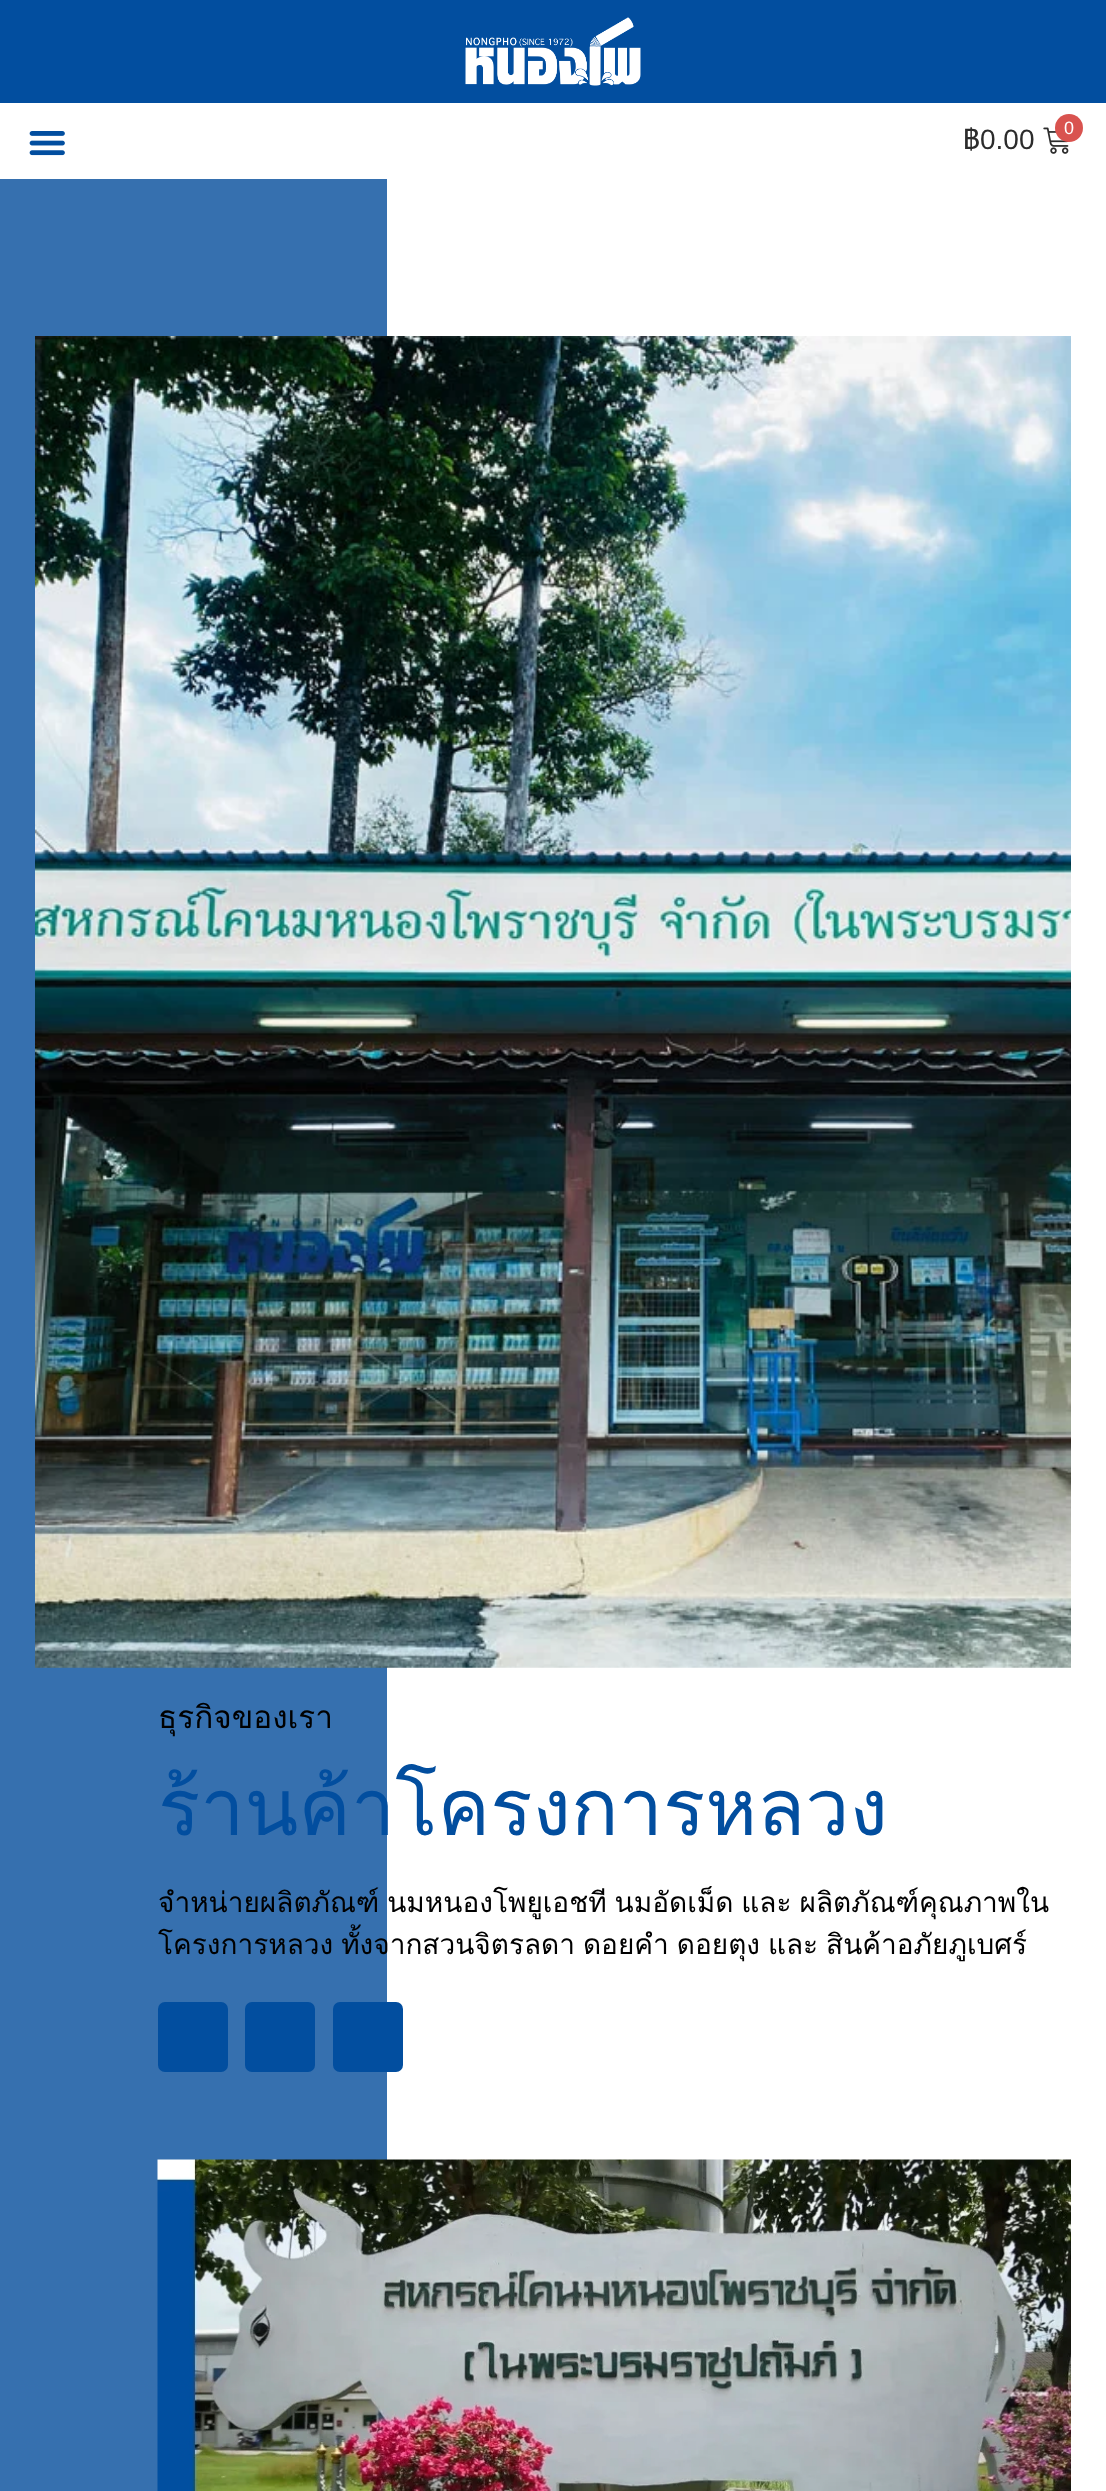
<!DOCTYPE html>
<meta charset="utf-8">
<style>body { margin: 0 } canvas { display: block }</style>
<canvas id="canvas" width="1106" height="2491"></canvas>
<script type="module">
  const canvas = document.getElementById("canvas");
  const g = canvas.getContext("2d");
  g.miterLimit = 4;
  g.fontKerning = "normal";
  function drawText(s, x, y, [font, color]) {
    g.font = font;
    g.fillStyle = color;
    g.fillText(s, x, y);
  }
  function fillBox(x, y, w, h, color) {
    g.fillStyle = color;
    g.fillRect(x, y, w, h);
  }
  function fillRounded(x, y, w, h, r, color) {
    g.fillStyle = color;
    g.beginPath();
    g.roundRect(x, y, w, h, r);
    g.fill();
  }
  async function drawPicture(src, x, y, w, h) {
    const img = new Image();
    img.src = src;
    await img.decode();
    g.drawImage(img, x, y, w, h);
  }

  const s1 = ["28px Loma", "#2C2C2C"];
  const s2 = ["28px Liberation Sans", "#2C2C2C"];
  const s3 = ["18px Liberation Sans", "#FFFFFF"];
  const s4 = ["31.5px Loma", "#000000"];
  const s5 = ["78.75px Loma", "#024E9F"];
  const s6 = ["28px Loma", "#000000"];

  fillBox(0, 0, 1106, 2491, "#FFFFFF");
  fillBox(0, 0, 1106, 103, "#024E9F");
  await drawPicture("pic1.png", 465, 17, 176, 69);
  await drawPicture("pic2.png", 29, 131, 36, 25);
  drawText("฿", 963, 149, s1);
  drawText("0.00", 980, 149, s2);
  await drawPicture("pic3.png", 1043, 127, 26, 27);
  g.fillStyle = "#D9534F";
  g.beginPath();
  g.arc(1069, 128, 14, 0, Math.PI * 2);
  g.fill();
  drawText("0", 1064, 134, s3);
  fillBox(0, 179, 387, 2312, "#3670AF");
  await drawPicture("pic4.png", 35, 336, 1036, 1332);
  drawText("ธุรกิจของเรา", 158, 1728, s4);
  drawText("ร้านค้าโครงการหลวง", 158, 1835, s5);
  g.wordSpacing = "-1.5px";
  drawText("จำหน่ายผลิตภัณฑ์ นมหนองโพยูเอชที นมอัดเม็ด และ ผลิตภัณฑ์คุณภาพใน", 158, 1912, s6);
  drawText("โครงการหลวง ทั้งจากสวนจิตรลดา ดอยคำ ดอยตุง และ สินค้าอภัยภูเบศร์", 158, 1954, s6);
  fillRounded(158, 2002, 70, 70, 7, "#024E9F");
  fillRounded(245, 2002, 70, 70, 7, "#024E9F");
  fillRounded(333, 2002, 70, 70, 7, "#024E9F");
  await drawPicture("pic5.png", 157, 2159, 914, 332);
</script>
